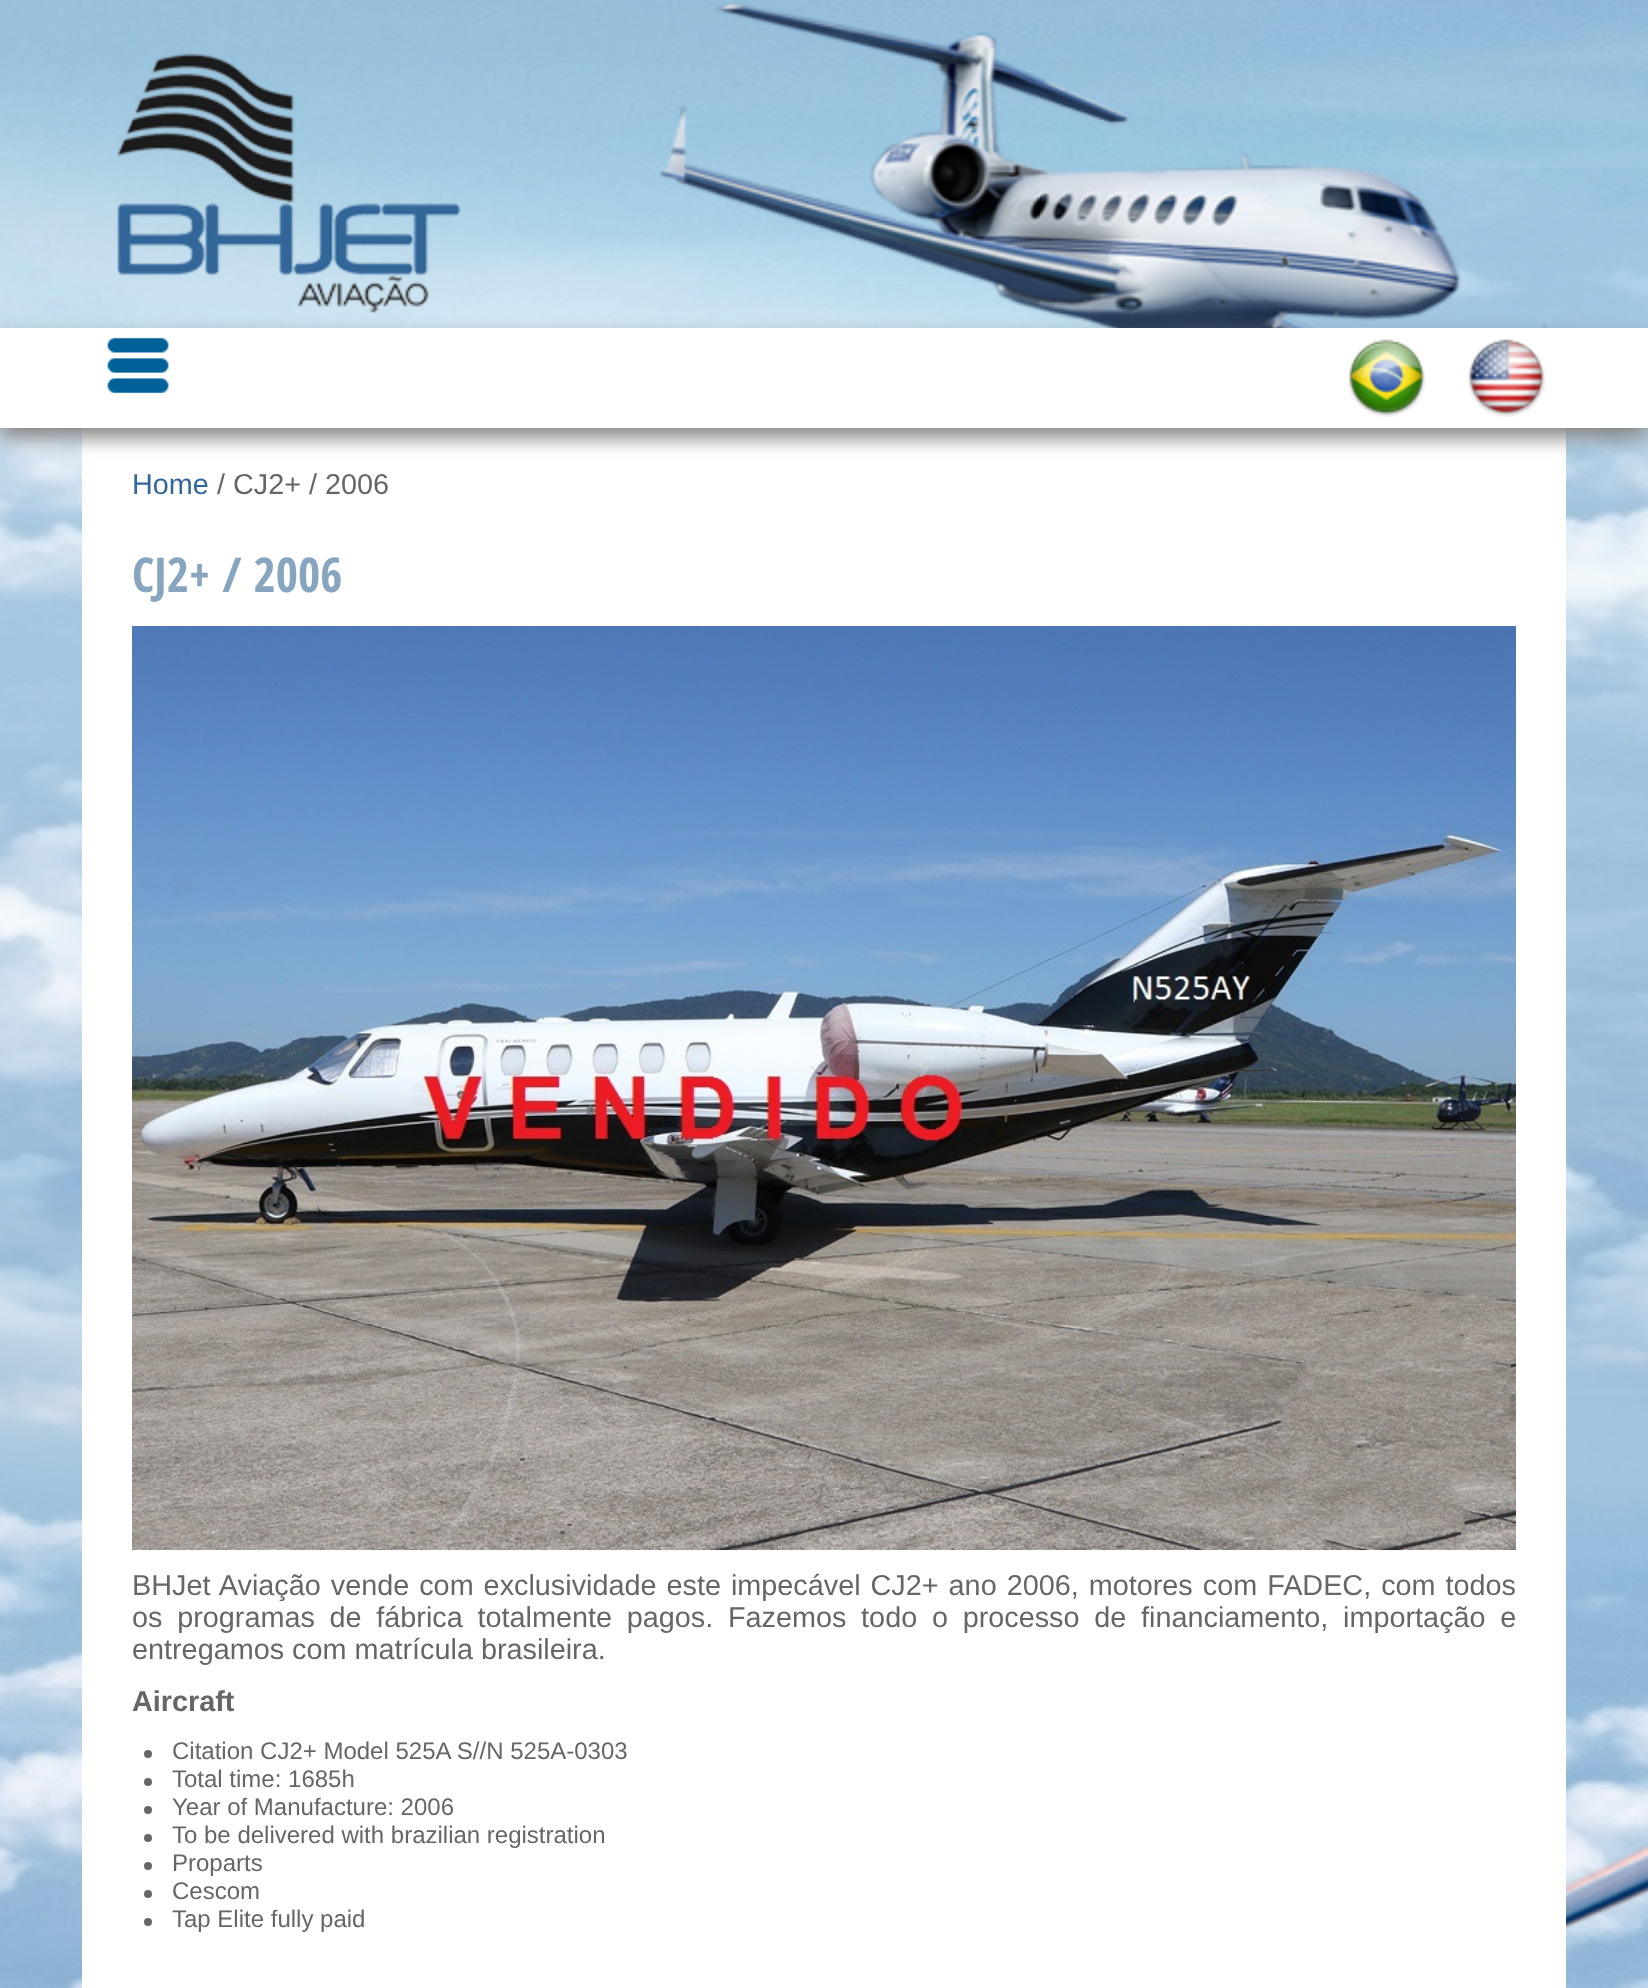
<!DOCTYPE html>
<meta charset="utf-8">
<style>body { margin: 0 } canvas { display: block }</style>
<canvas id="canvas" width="1648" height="1988"></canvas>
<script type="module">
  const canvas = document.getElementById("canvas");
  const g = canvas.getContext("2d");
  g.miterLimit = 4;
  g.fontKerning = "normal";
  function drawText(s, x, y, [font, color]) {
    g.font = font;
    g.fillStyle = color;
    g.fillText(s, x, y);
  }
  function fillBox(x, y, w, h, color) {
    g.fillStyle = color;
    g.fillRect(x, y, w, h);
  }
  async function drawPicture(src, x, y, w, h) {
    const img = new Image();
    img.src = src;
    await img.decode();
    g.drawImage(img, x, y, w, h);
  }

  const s1 = ["28.8px Liberation Sans", "#336799"];
  const s2 = ["28.8px Liberation Sans", "#666666"];
  const s3 = ["bold 48px Open Sans Condensed", "#87A5BF"];
  const s4 = ["bold 28.8px Liberation Sans", "#666666"];
  const s5 = ["24px Liberation Sans", "#666666"];

  fillBox(0, 0, 1648, 1988, "#FFFFFF");
  await drawPicture("pic1.png", 0, 0, 1648, 1988);
  await drawPicture("pic3.png", 0, 168, 1648, 1394);
  await drawPicture("pic2.png", 659, 2, 889, 326);
  await drawPicture("pic4.png", 1566, 1845, 82, 85);
  await drawPicture("pic5.png", 117, 53, 344, 260);
  fillBox(82, 428, 1484, 1560, "#FFFFFF");
  g.fillStyle = "#858585";
  g.filter = "blur(10px)";
  g.beginPath();
  g.rect(0, 338, 1648, 100);
  g.fill();
  g.filter = "none";
  fillBox(0, 328, 1648, 100, "#FFFFFF");
  await drawPicture("pic6.png", 107, 337, 62, 57);
  await drawPicture("pic7.png", 1348, 339, 78, 78);
  await drawPicture("pic8.png", 1467, 339, 79, 78);
  drawText("Home", 132, 494, s1);
  drawText("/ CJ2+ / 2006", 217, 494, s2);
  drawText("CJ2+ / 2006", 132, 592, s3);
  await drawPicture("pic9.png", 132, 626, 1384, 924);
  g.wordSpacing = "2px";
  drawText("BHJet Aviação vende com exclusividade este impecável CJ2+ ano 2006, motores com FADEC, com todos", 132, 1595, s2);
  g.wordSpacing = "6.75px";
  drawText("os programas de fábrica totalmente pagos. Fazemos todo o processo de financiamento, importação e", 132, 1627, s2);
  g.wordSpacing = "0px";
  drawText("entregamos com matrícula brasileira.", 132, 1659, s2);
  drawText("Aircraft", 132, 1711, s4);
  g.beginPath();
  g.arc(148, 1754, 4, 0, Math.PI * 2);
  g.fill();
  drawText("Citation CJ2+ Model 525A S//N 525A-0303", 172, 1759, s5);
  g.beginPath();
  g.arc(148, 1782, 4, 0, Math.PI * 2);
  g.fill();
  drawText("Total time: 1685h", 172, 1787, s5);
  g.beginPath();
  g.arc(148, 1810, 4, 0, Math.PI * 2);
  g.fill();
  drawText("Year of Manufacture: 2006", 172, 1815, s5);
  g.beginPath();
  g.arc(148, 1838, 4, 0, Math.PI * 2);
  g.fill();
  drawText("To be delivered with brazilian registration", 172, 1843, s5);
  g.beginPath();
  g.arc(148, 1866, 4, 0, Math.PI * 2);
  g.fill();
  drawText("Proparts", 172, 1871, s5);
  g.beginPath();
  g.arc(148, 1894, 4, 0, Math.PI * 2);
  g.fill();
  drawText("Cescom", 172, 1899, s5);
  g.beginPath();
  g.arc(148, 1922, 4, 0, Math.PI * 2);
  g.fill();
  drawText("Tap Elite fully paid", 172, 1927, s5);
</script>
